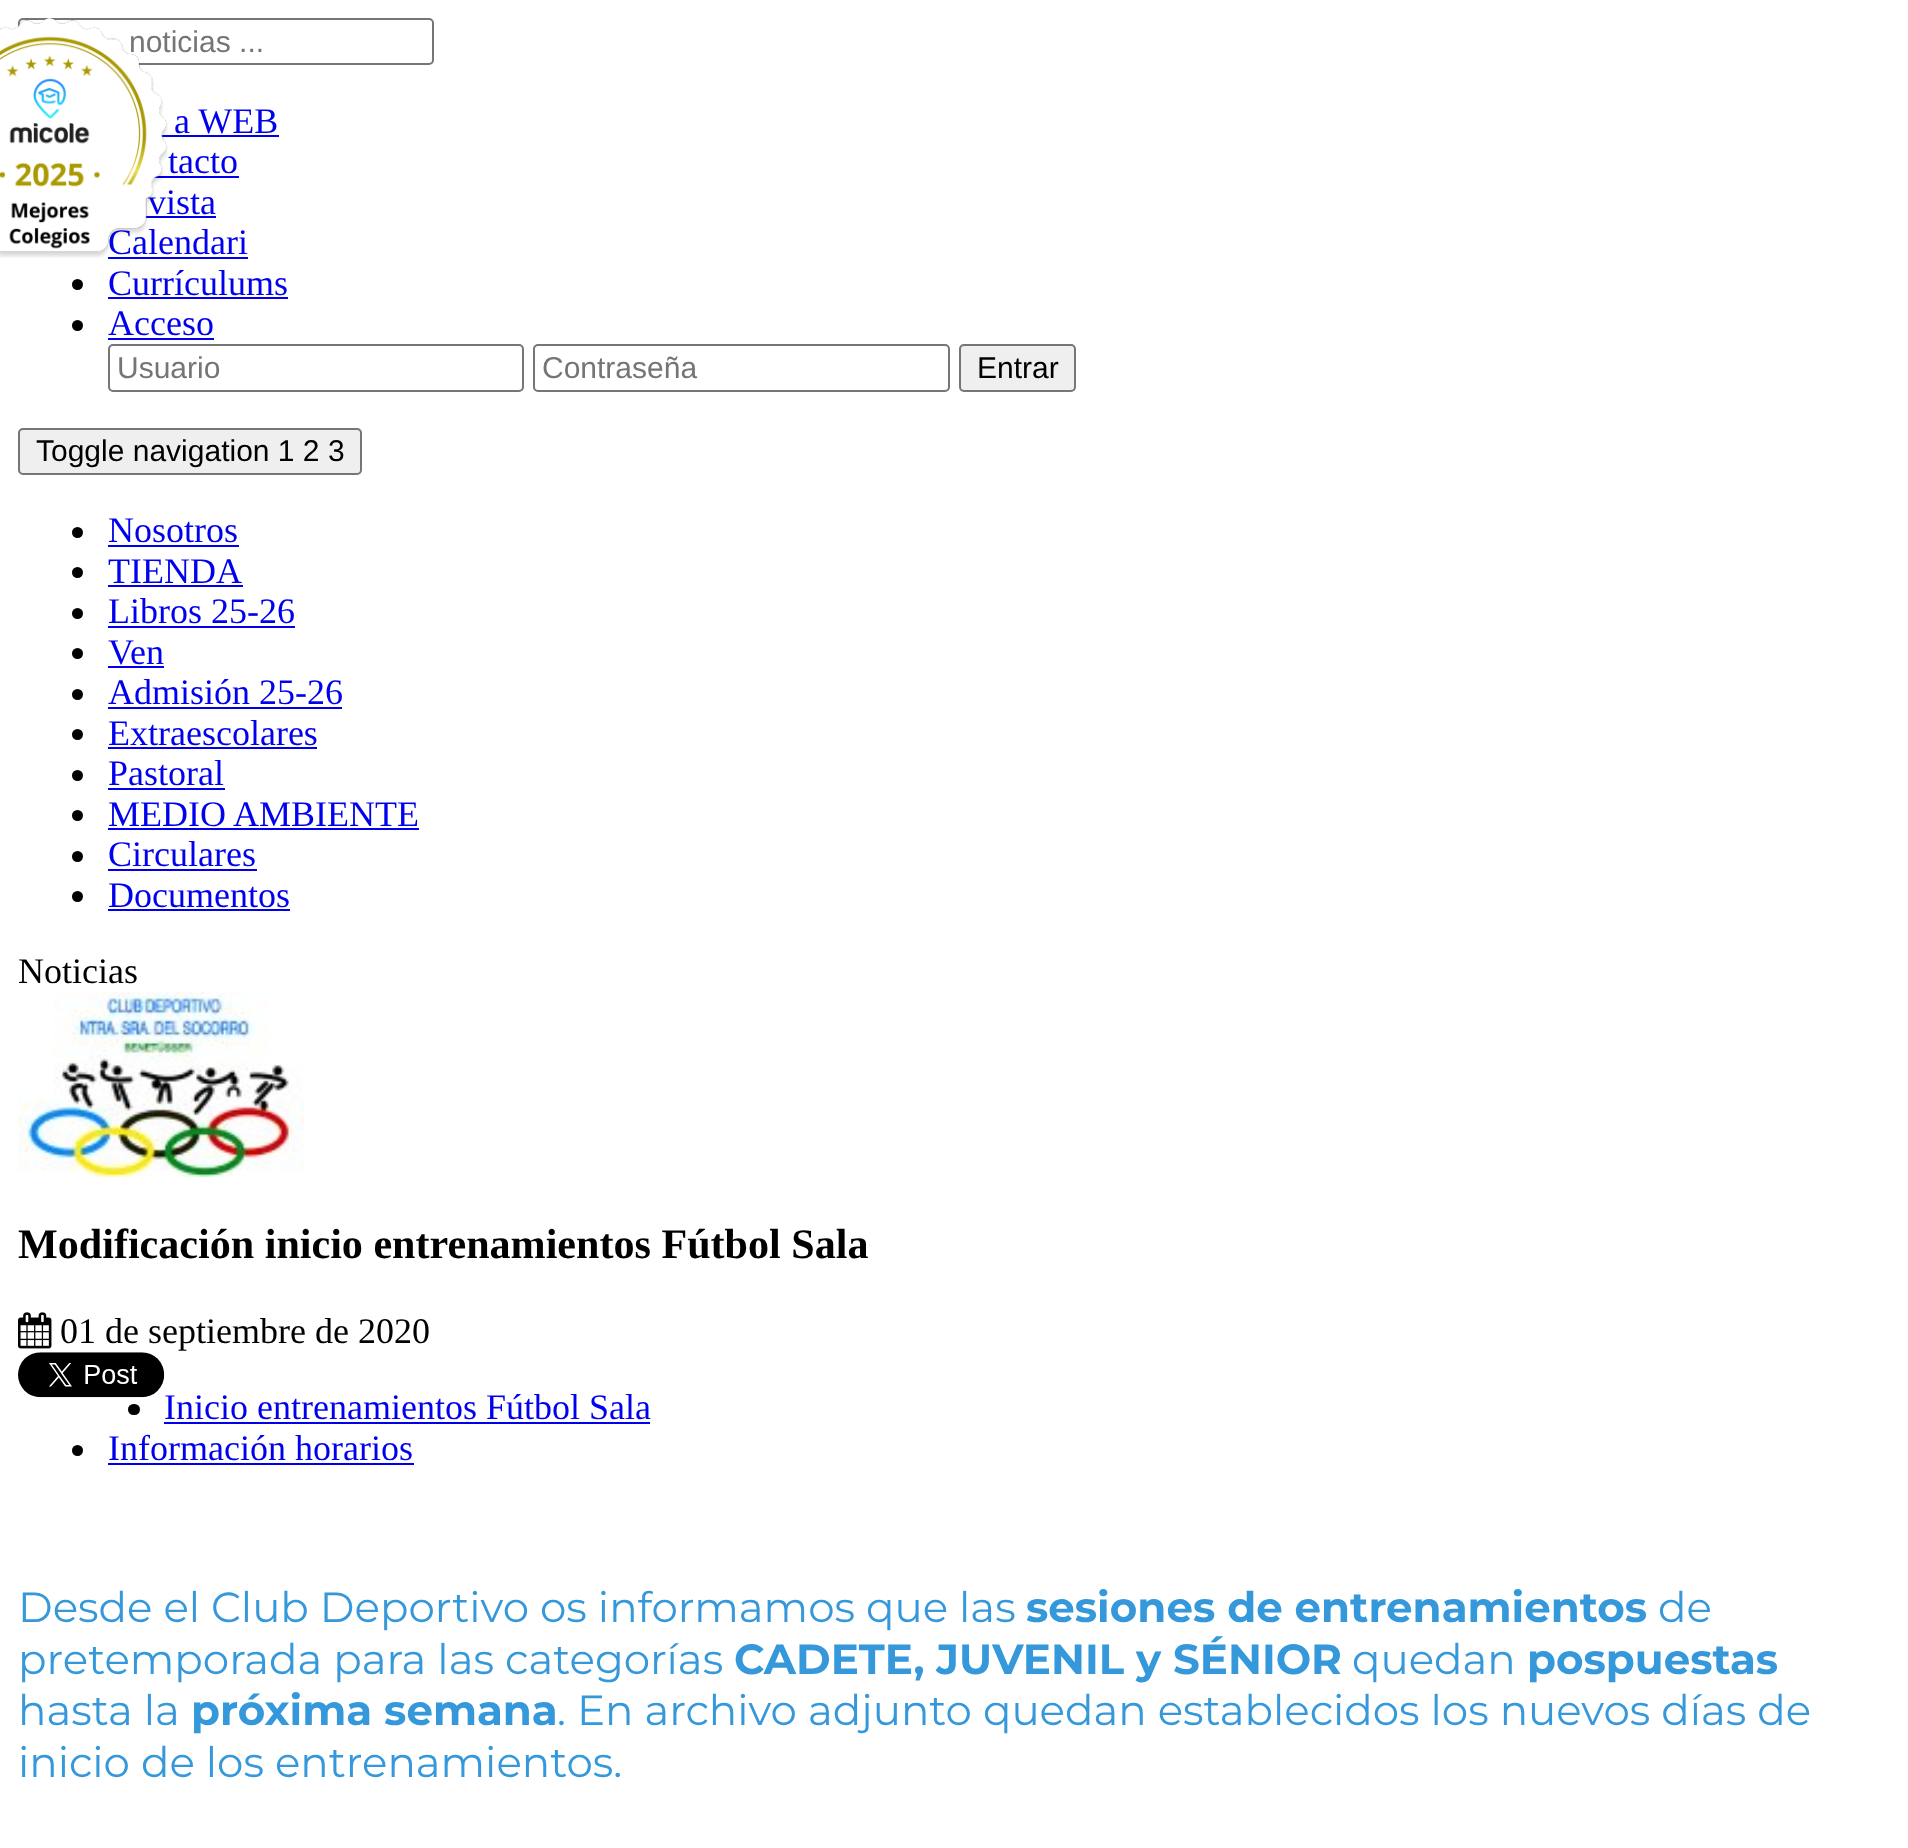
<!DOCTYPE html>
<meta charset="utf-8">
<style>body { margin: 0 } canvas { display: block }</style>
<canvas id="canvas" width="1908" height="1848"></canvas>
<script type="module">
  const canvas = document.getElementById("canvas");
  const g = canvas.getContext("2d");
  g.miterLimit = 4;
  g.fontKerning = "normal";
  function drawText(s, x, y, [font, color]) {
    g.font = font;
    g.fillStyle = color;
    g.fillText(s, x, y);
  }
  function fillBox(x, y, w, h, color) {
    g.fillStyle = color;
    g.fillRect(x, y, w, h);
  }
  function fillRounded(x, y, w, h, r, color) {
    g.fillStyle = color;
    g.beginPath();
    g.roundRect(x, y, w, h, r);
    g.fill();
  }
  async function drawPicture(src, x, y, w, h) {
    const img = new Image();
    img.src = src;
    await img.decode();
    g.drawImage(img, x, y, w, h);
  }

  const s1 = ["30px Liberation Sans", "#757575"];
  const s2 = ["36px Liberation Serif", "#0000EE"];
  const s3 = ["30px Liberation Sans", "#000000"];
  const s4 = ["36px Liberation Serif", "#000000"];
  const s5 = ["bold 42.1px Liberation Serif", "#000000"];
  const s6 = ["42px Montserrat", "#3598DB"];
  const s7 = ["bold 42px Montserrat", "#3598DB"];

  fillBox(0, 0, 1908, 1848, "#FFFFFF");
  g.beginPath();
  g.roundRect(19, 19, 414, 45, 4);
  g.strokeStyle = "#767676";
  g.lineWidth = 2;
  g.stroke();
  drawText("noticias ...", 129, 52, s1);
  fillBox(161, 135, 118, 2, "#0000EE");
  fillBox(153, 176, 86, 2, "#0000EE");
  drawText("vista", 148, 214, s2);
  fillBox(145, 216, 71, 2, "#0000EE");
  drawText("Calendari", 108, 254, s2);
  fillBox(108, 257, 140, 2, "#0000EE");
  await drawPicture("pic1.png", 0, 18, 168, 240);
  drawText("a WEB", 174, 133, s2);
  drawText("tacto", 168, 173, s2);
  g.fillStyle = "#000000";
  g.beginPath();
  g.arc(77.5, 284.5, 5.5, 0, Math.PI * 2);
  g.fill();
  drawText("Currículums", 108, 295, s2);
  fillBox(108, 297, 180, 2, "#0000EE");
  g.fillStyle = "#000000";
  g.beginPath();
  g.arc(77.5, 325.5, 5.5, 0, Math.PI * 2);
  g.fill();
  drawText("Acceso", 108, 335, s2);
  fillBox(108, 338, 106, 2, "#0000EE");
  g.beginPath();
  g.roundRect(109, 345, 414, 46, 4);
  g.stroke();
  drawText("Usuario", 117, 378, s1);
  g.beginPath();
  g.roundRect(534, 345, 415, 46, 4);
  g.stroke();
  drawText("Contraseña", 542, 378, s1);
  g.fillStyle = "#EFEFEF";
  g.beginPath();
  g.roundRect(960, 345, 115, 46, 4);
  g.fill();
  g.stroke();
  drawText("Entrar", 977, 378, s3);
  g.fillStyle = "#EFEFEF";
  g.beginPath();
  g.roundRect(19, 429, 342, 45, 4);
  g.fill();
  g.stroke();
  drawText("Toggle navigation 1 2 3", 36, 461, s3);
  g.beginPath();
  g.arc(77.5, 532.5, 5.5, 0, Math.PI * 2);
  g.fill();
  drawText("Nosotros", 108, 542, s2);
  fillBox(108, 545, 131, 2, "#0000EE");
  g.fillStyle = "#000000";
  g.beginPath();
  g.arc(77.5, 572.5, 5.5, 0, Math.PI * 2);
  g.fill();
  drawText("TIENDA", 108, 583, s2);
  fillBox(108, 585, 135, 2, "#0000EE");
  g.fillStyle = "#000000";
  g.beginPath();
  g.arc(77.5, 613.5, 5.5, 0, Math.PI * 2);
  g.fill();
  drawText("Libros 25-26", 108, 623, s2);
  fillBox(108, 626, 187, 2, "#0000EE");
  g.fillStyle = "#000000";
  g.beginPath();
  g.arc(77.5, 653.5, 5.5, 0, Math.PI * 2);
  g.fill();
  drawText("Ven", 108, 664, s2);
  fillBox(108, 666, 56, 2, "#0000EE");
  g.fillStyle = "#000000";
  g.beginPath();
  g.arc(77.5, 694.5, 5.5, 0, Math.PI * 2);
  g.fill();
  drawText("Admisión 25-26", 108, 704, s2);
  fillBox(108, 707, 234, 2, "#0000EE");
  g.fillStyle = "#000000";
  g.beginPath();
  g.arc(77.5, 734.5, 5.5, 0, Math.PI * 2);
  g.fill();
  drawText("Extraescolares", 108, 745, s2);
  fillBox(108, 747, 209, 2, "#0000EE");
  g.fillStyle = "#000000";
  g.beginPath();
  g.arc(77.5, 775.5, 5.5, 0, Math.PI * 2);
  g.fill();
  drawText("Pastoral", 108, 785, s2);
  fillBox(108, 788, 117, 2, "#0000EE");
  g.fillStyle = "#000000";
  g.beginPath();
  g.arc(77.5, 815.5, 5.5, 0, Math.PI * 2);
  g.fill();
  drawText("MEDIO AMBIENTE", 108, 826, s2);
  fillBox(108, 828, 311, 2, "#0000EE");
  g.fillStyle = "#000000";
  g.beginPath();
  g.arc(77.5, 856.5, 5.5, 0, Math.PI * 2);
  g.fill();
  drawText("Circulares", 108, 866, s2);
  fillBox(108, 869, 149, 2, "#0000EE");
  g.fillStyle = "#000000";
  g.beginPath();
  g.arc(77.5, 896.5, 5.5, 0, Math.PI * 2);
  g.fill();
  drawText("Documentos", 108, 907, s2);
  fillBox(108, 909, 182, 2, "#0000EE");
  drawText("Noticias", 18, 983, s4);
  await drawPicture("pic2.png", 18, 992, 286, 185);
  drawText("Modificación inicio entrenamientos Fútbol Sala", 18, 1258, s5);
  await drawPicture("pic3.png", 18, 1312, 34, 37);
  drawText("01 de septiembre de 2020", 60, 1343, s4);
  await drawPicture("pic4.png", 18, 1352, 147, 46);
  fillRounded(128, 1404, 12, 11, 5.5, "#000000");
  drawText("Inicio entrenamientos Fútbol Sala", 164, 1419, s2);
  fillBox(164, 1422, 486, 2, "#0000EE");
  g.fillStyle = "#000000";
  g.beginPath();
  g.arc(77.5, 1450.5, 5.5, 0, Math.PI * 2);
  g.fill();
  drawText("Información horarios", 108, 1460, s2);
  fillBox(108, 1463, 306, 2, "#0000EE");
  drawText("Desde el Club Deportivo os informamos que las", 18, 1622, s6);
  drawText("sesiones de entrenamientos", 1026, 1622, s7);
  drawText("de", 1658, 1622, s6);
  drawText("pretemporada para las categorías", 18, 1674, s6);
  drawText("CADETE, JUVENIL y SÉNIOR", 734, 1674, s7);
  drawText("quedan", 1352, 1674, s6);
  drawText("pospuestas", 1527, 1674, s7);
  drawText("hasta la", 18, 1725, s6);
  drawText("próxima semana", 191, 1725, s7);
  drawText(". En archivo adjunto quedan establecidos los nuevos días de", 557, 1725, s6);
  drawText("inicio de los entrenamientos.", 18, 1777, s6);
</script>
